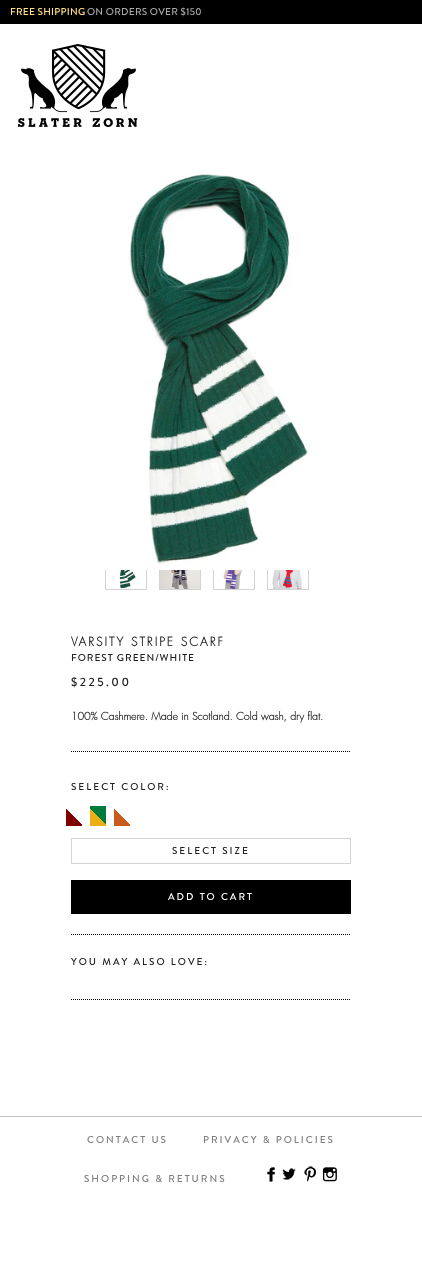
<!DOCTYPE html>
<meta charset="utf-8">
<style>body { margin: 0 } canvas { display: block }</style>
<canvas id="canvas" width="422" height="1268"></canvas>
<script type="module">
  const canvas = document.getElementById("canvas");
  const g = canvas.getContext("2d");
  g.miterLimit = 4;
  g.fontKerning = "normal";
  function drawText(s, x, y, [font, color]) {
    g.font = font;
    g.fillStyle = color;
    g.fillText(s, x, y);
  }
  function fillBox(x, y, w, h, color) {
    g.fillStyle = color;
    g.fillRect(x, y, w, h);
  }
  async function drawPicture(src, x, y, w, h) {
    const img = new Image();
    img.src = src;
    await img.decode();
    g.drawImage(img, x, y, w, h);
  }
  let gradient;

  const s1 = ["500 10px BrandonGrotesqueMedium", "#FEE083"];
  const s2 = ["500 10px BrandonGrotesqueMedium", "#A7A7A7"];
  const s3 = ["bold 12px Futura", "#222222"];
  const s4 = ["500 10px BrandonGrotesqueMedium", "#222222"];
  const s5 = ["500 12px BrandonGrotesqueMedium", "#222222"];
  const s6 = ["bold 10.5px Futura", "#222222"];
  const s7 = ["500 10px BrandonGrotesqueMedium", "#FFFFFF"];
  const s8 = ["500 10px BrandonGrotesqueMedium", "#7F7F7F"];

  fillBox(0, 0, 422, 1268, "#FFFFFF");
  fillBox(0, 0, 422, 24, "#000000");
  g.letterSpacing = "0.25px";
  drawText("FREE SHIPPING", 10, 15, s1);
  drawText("ON ORDERS OVER $150", 87, 15, s2);
  await drawPicture("pic1.png", 18, 44, 120, 83);
  g.strokeStyle = "#D2D3D5";
  g.strokeRect(105.5, 548.5, 41, 41);
  g.strokeRect(159.5, 548.5, 41, 41);
  g.strokeRect(213.5, 548.5, 41, 41);
  g.strokeRect(267.5, 548.5, 41, 41);
  await drawPicture("pic2.png", 60, 174, 249, 396);
  await drawPicture("pic3.png", 118, 570, 18, 19);
  await drawPicture("pic4.png", 160, 570, 40, 19);
  await drawPicture("pic5.png", 223, 570, 22, 19);
  await drawPicture("pic6.png", 272, 570, 30, 19);
  g.letterSpacing = "2px";
  drawText("VARSITY STRIPE SCARF", 71, 646, s3);
  g.letterSpacing = "1px";
  drawText("FOREST GREEN/WHITE", 71, 661, s4);
  g.letterSpacing = "2.5px";
  drawText("$225.00", 71, 686, s5);
  g.beginPath();
  g.moveTo(71, 751.5);
  g.lineTo(351, 751.5);
  g.strokeStyle = "#000000";
  g.setLineDash([1, 1]);
  g.stroke();
  g.letterSpacing = "0px";
  drawText("100% Cashmere. Made in Scotland. Cold wash, dry flat.", 71, 720, s6);
  g.letterSpacing = "2px";
  drawText("SELECT COLOR:", 71, 790, s4);
  gradient = g.createLinearGradient(65, 825, 83, 807);
  gradient.addColorStop(0.5, "#800000");
  gradient.addColorStop(0.5, "#FFFFFF");
  g.fillStyle = gradient;
  g.fillRect(66, 809, 16, 17);
  gradient = g.createLinearGradient(89, 825, 107, 807);
  gradient.addColorStop(0.5, "#ECAE12");
  gradient.addColorStop(0.5, "#007B3B");
  g.fillStyle = gradient;
  g.fillRect(90, 806, 16, 20);
  gradient = g.createLinearGradient(113, 825, 131, 807);
  gradient.addColorStop(0.5, "#C85C1A");
  gradient.addColorStop(0.5, "#FFFFFF");
  g.fillStyle = gradient;
  g.fillRect(114, 809, 16, 17);
  g.strokeStyle = "#D2D3D5";
  g.setLineDash([]);
  g.strokeRect(71.5, 838.5, 279, 25);
  drawText("SELECT SIZE", 172, 854, s4);
  fillBox(71, 880, 280, 34, "#000000");
  drawText("ADD TO CART", 168, 900, s7);
  g.beginPath();
  g.moveTo(71, 934.5);
  g.lineTo(351, 934.5);
  g.strokeStyle = "#000000";
  g.setLineDash([1, 1]);
  g.stroke();
  drawText("YOU MAY ALSO LOVE:", 71, 965, s4);
  g.beginPath();
  g.moveTo(71, 999.5);
  g.lineTo(351, 999.5);
  g.stroke();
  fillBox(0, 1116, 422, 1, "#C2C2C2");
  drawText("CONTACT US", 87, 1143, s8);
  drawText("PRIVACY & POLICIES", 203, 1143, s8);
  drawText("SHOPPING & RETURNS", 84, 1182, s8);
  await drawPicture("pic7.png", 267, 1167, 8, 15);
  await drawPicture("pic8.png", 282, 1168, 14, 12);
  await drawPicture("pic9.png", 304, 1166, 12, 16);
  await drawPicture("pic10.png", 322, 1167, 15, 15);
</script>
